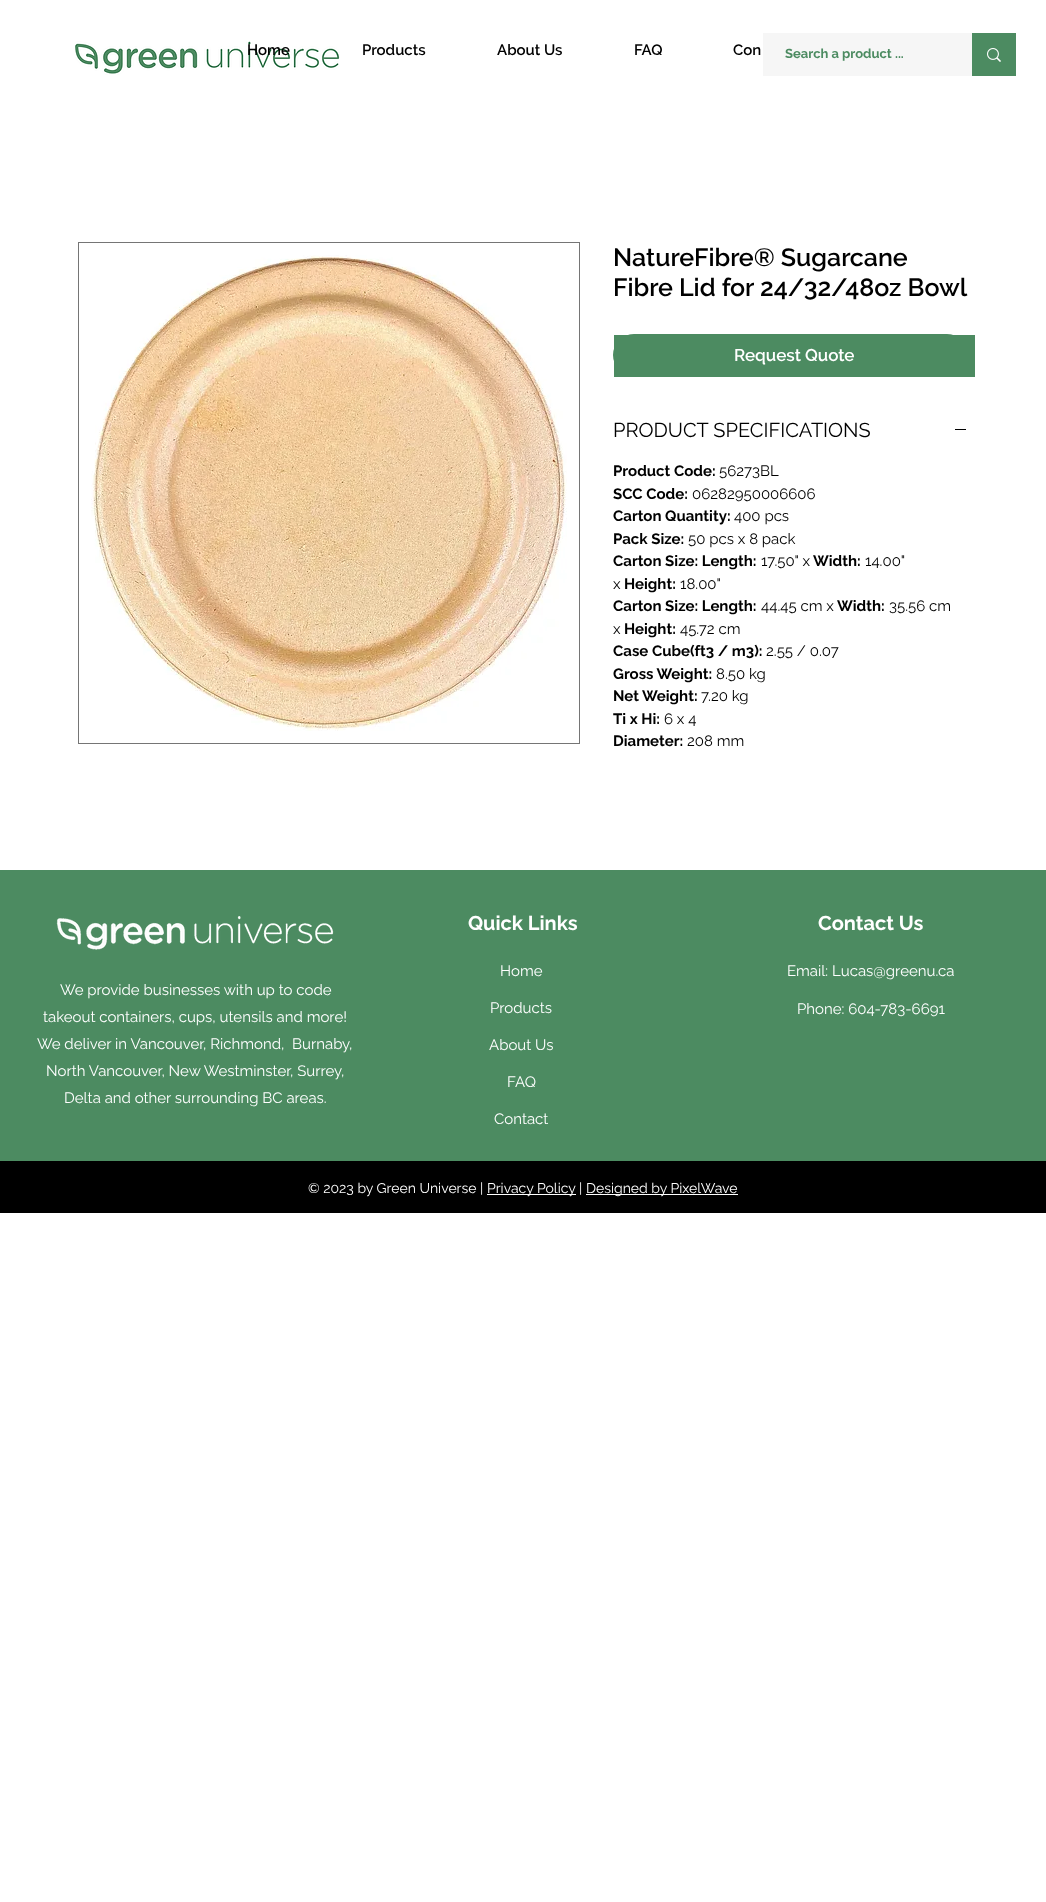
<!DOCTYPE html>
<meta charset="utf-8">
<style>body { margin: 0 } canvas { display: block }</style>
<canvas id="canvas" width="1046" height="1902"></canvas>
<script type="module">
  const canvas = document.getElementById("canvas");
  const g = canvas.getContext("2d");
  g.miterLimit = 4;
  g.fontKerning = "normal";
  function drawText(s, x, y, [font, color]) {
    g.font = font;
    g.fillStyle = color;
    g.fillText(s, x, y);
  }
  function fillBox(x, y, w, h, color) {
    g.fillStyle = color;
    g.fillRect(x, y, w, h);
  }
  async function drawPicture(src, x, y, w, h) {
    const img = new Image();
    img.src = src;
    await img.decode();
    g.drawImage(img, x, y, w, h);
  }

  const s1 = ["600 15px Raleway", "#000000"];
  const s2 = ["bold 13px Raleway", "#4C8B61"];
  const s3 = ["600 25px Raleway", "#000000"];
  const s4 = ["20px Raleway", "#000000"];
  const s5 = ["bold 15px Raleway", "#000000"];
  const s6 = ["15px Raleway", "#000000"];
  const s7 = ["600 17px Raleway", "#FFFFFF"];
  const s8 = ["bold 20px Raleway", "#FFFFFF"];
  const s9 = ["15px Raleway", "#FFFFFF"];
  const s10 = ["14px Raleway", "#FFFFFF"];

  fillBox(0, 0, 1046, 1902, "#FFFFFF");
  await drawPicture("pic1.png", 75, 41, 265, 34);
  drawText("Home", 247, 55, s1);
  drawText("Products", 362, 55, s1);
  drawText("About Us", 497, 55, s1);
  drawText("FAQ", 634, 55, s1);
  drawText("Con", 733, 55, s1);
  fillBox(763, 33, 209, 43, "#F6F6F6");
  drawText("Search a product ...", 785, 58, s2);
  fillBox(972, 33, 44, 43, "#4C8B61");
  await drawPicture("pic2.png", 987, 48, 14, 14);
  g.strokeStyle = "#757575";
  g.strokeRect(78.5, 242.5, 501, 501);
  await drawPicture("pic3.png", 91, 255, 476, 476);
  drawText("NatureFibre® Sugarcane", 613, 266, s3);
  drawText("Fibre Lid for 24/32/48oz Bowl", 613, 296, s3);
  g.beginPath();
  g.roundRect(613.5, 334.5, 354, 41, 20.5);
  g.strokeStyle = "#4C8B61";
  g.stroke();
  drawText("PRODUCT SPECIFICATIONS", 613, 437, s4);
  fillBox(955, 429, 11, 1, "#000000");
  drawText("Product Code:", 613, 476, s5);
  drawText("56273BL", 719, 476, s6);
  drawText("SCC Code:", 613, 499, s5);
  drawText("06282950006606", 692, 499, s6);
  drawText("Carton Quantity:", 613, 521, s5);
  drawText("400 pcs", 734, 521, s6);
  drawText("Pack Size:", 613, 544, s5);
  drawText("50 pcs x 8 pack", 688, 544, s6);
  drawText("Carton Size: Length:", 613, 566, s5);
  drawText("17.50\" x", 761, 566, s6);
  drawText("Width:", 813, 566, s5);
  drawText("14.00\"", 865, 566, s6);
  drawText("x", 613, 589, s6);
  drawText("Height:", 624, 589, s5);
  drawText("18.00\"", 680, 589, s6);
  drawText("Carton Size: Length:", 613, 611, s5);
  drawText("44.45 cm x", 761, 611, s6);
  drawText("Width:", 837, 611, s5);
  drawText("35.56 cm", 889, 611, s6);
  drawText("x", 613, 634, s6);
  drawText("Height:", 624, 634, s5);
  drawText("45.72 cm", 680, 634, s6);
  drawText("Case Cube(ft3 / m3):", 613, 656, s5);
  drawText("2.55 / 0.07", 766, 656, s6);
  drawText("Gross Weight:", 613, 679, s5);
  drawText("8.50 kg", 716, 679, s6);
  drawText("Net Weight:", 613, 701, s5);
  drawText("7.20 kg", 701, 701, s6);
  drawText("Ti x Hi:", 613, 724, s5);
  drawText("6 x 4", 664, 724, s6);
  drawText("Diameter:", 613, 746, s5);
  drawText("208 mm", 687, 746, s6);
  fillBox(614, 335, 361, 42, "#4C8B61");
  drawText("Request Quote", 734, 361, s7);
  fillBox(0, 870, 1046, 291, "#4C8B61");
  drawText("Quick Links", 468, 930, s8);
  drawText("Home", 500, 976, s9);
  drawText("Products", 490, 1013, s9);
  drawText("About Us", 489, 1050, s9);
  drawText("FAQ", 507, 1087, s9);
  drawText("Contact", 494, 1124, s9);
  drawText("Contact Us", 818, 930, s8);
  drawText("Email: Lucas@greenu.ca", 787, 976, s9);
  drawText("Phone: 604-783-6691", 797, 1014, s9);
  await drawPicture("pic4.png", 56, 916, 278, 34);
  drawText("We provide businesses with up to code", 60, 995, s9);
  drawText("takeout containers, cups, utensils and more!", 43, 1022, s9);
  drawText("We deliver in Vancouver, Richmond,  Burnaby,", 37, 1049, s9);
  drawText("North Vancouver, New Westminster, Surrey,", 46, 1076, s9);
  drawText("Delta and other surrounding BC areas.", 64, 1103, s9);
  fillBox(0, 1161, 1046, 52, "#000000");
  drawText("© 2023 by Green Universe |", 308, 1193, s10);
  fillBox(487, 1194, 89, 1, "#FFFFFF");
  drawText("Privacy Policy", 487, 1193, s10);
  drawText("|", 579, 1193, s10);
  fillBox(586, 1194, 152, 1, "#FFFFFF");
  drawText("Designed by PixelWave", 586, 1193, s10);
</script>
